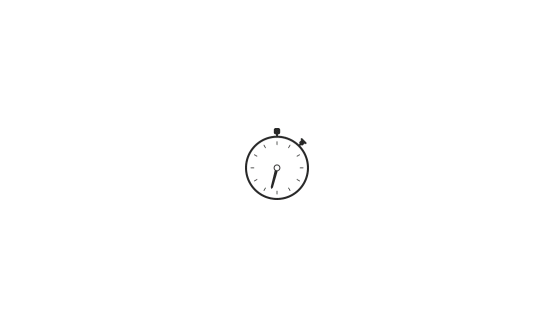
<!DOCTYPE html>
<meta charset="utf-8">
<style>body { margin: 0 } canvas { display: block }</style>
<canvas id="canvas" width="553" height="320"></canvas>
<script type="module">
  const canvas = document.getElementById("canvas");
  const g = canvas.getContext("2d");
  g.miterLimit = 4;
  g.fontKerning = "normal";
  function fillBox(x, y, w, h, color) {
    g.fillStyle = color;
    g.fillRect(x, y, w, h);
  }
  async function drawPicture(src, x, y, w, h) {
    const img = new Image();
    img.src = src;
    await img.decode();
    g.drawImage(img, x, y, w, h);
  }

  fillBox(0, 0, 553, 320, "#FFFFFF");
  await drawPicture("pic1.png", 245, 128, 64, 72);
</script>
